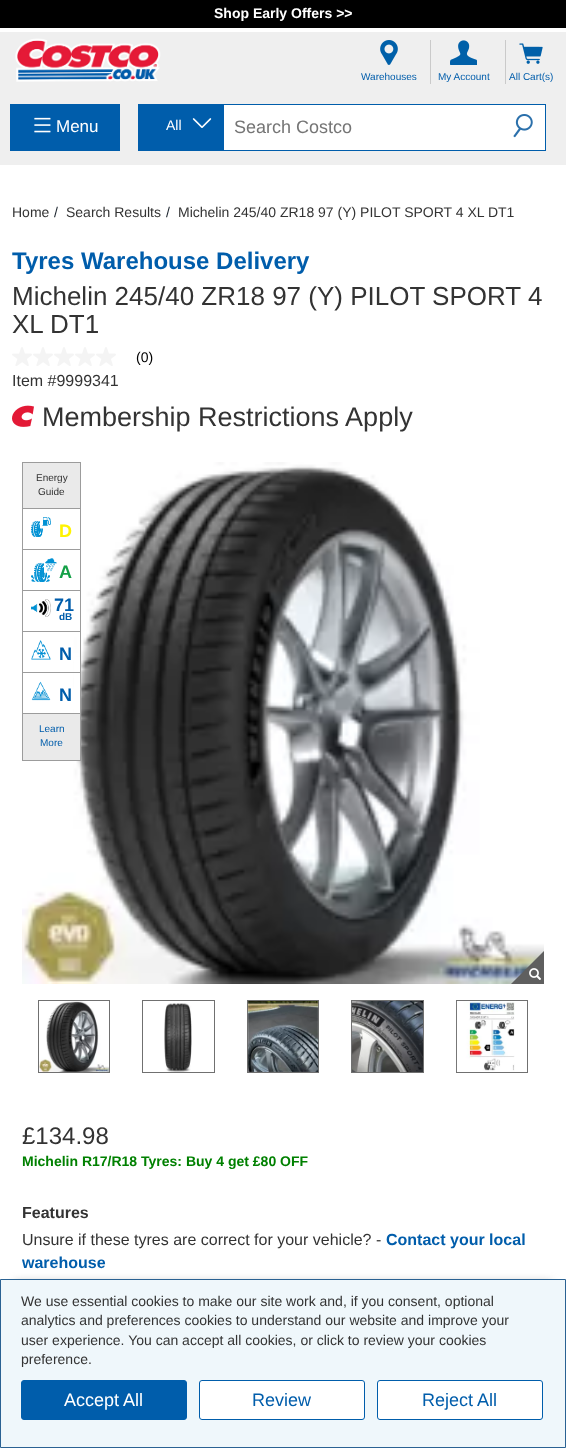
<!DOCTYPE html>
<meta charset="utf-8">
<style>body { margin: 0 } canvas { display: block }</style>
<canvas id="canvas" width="566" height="1448"></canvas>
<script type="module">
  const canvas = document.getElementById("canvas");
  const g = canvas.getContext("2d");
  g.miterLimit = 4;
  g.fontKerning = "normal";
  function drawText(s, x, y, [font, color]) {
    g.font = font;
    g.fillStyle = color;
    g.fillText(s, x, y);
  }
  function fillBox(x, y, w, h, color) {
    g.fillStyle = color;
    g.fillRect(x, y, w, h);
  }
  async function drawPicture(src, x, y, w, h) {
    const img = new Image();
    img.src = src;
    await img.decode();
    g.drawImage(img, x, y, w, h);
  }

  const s1 = ["bold 14px Liberation Sans", "#FFFFFF"];
  const s2 = ["10px Liberation Sans", "#005DAB"];
  const s3 = ["17px Liberation Sans", "#FFFFFF"];
  const s4 = ["14px Liberation Sans", "#FFFFFF"];
  const s5 = ["18px Liberation Sans", "#757575"];
  const s6 = ["14px Liberation Sans", "#333333"];
  const s7 = ["18px Liberation Sans", "#FFFFFF"];
  const s8 = ["18px Liberation Sans", "#005DAB"];
  const s9 = ["14px Liberation Sans", "#19212B"];
  const s10 = ["bold 24px Liberation Sans", "#005DAB"];
  const s11 = ["26px Liberation Sans", "#333333"];
  const s12 = ["14px Liberation Sans", "#000000"];
  const s13 = ["16px Liberation Sans", "#333333"];
  const s14 = ["27px Liberation Sans", "#333333"];
  const s15 = ["10px Liberation Sans", "#333333"];
  const s16 = ["bold 18px Liberation Sans", "#FFF301"];
  const s17 = ["bold 18px Liberation Sans", "#14A047"];
  const s18 = ["bold 18px Liberation Sans", "#005DAB"];
  const s19 = ["bold 10px Liberation Sans", "#005DAB"];
  const s20 = ["24px Liberation Sans", "#333333"];
  const s21 = ["bold 14px Liberation Sans", "#008000"];
  const s22 = ["bold 16px Liberation Sans", "#333333"];
  const s23 = ["bold 16px Liberation Sans", "#005DAB"];

  fillBox(0, 0, 566, 1448, "#FFFFFF");
  fillBox(0, 0, 566, 28, "#000000");
  drawText("Shop Early Offers >>", 214, 18, s1);
  fillBox(0, 32, 566, 133, "#EFEFEF");
  await drawPicture("pic1.png", 15, 38, 146, 44);
  fillBox(430, 40, 1, 44, "#CACACA");
  await drawPicture("pic2.png", 380, 40, 18, 25);
  drawText("Warehouses", 361, 80, s2);
  fillBox(505, 40, 1, 44, "#CACACA");
  await drawPicture("pic3.png", 450, 40, 27, 25);
  drawText("My Account", 438, 80, s2);
  await drawPicture("pic4.png", 519, 43, 24, 21);
  drawText("All Cart(s)", 509, 80, s2);
  fillBox(10, 104, 110, 47, "#005DAB");
  await drawPicture("pic5.png", 34, 117, 17, 16);
  drawText("Menu", 56, 132, s3);
  fillBox(224, 105, 321, 45, "#FFFFFF");
  g.strokeStyle = "#005DAB";
  g.strokeRect(138.5, 104.5, 407, 46);
  fillBox(139, 105, 85, 45, "#005DAB");
  drawText("All", 166, 130, s4);
  await drawPicture("pic6.png", 192, 118, 20, 10);
  drawText("Search Costco", 234, 133, s5);
  await drawPicture("pic7.png", 513, 114, 20, 24);
  g.fillStyle = "#9C9C9C";
  g.filter = "blur(5px)";
  g.beginPath();
  g.rect(14, 1283, 538, 141);
  g.fill();
  g.filter = "none";
  g.fillStyle = "#EFF7FB";
  g.beginPath();
  g.rect(0.5, 1279.5, 565, 168);
  g.fill();
  g.strokeStyle = "#2A6293";
  g.stroke();
  drawText("We use essential cookies to make our site work and, if you consent, optional", 21, 1306, s6);
  drawText("analytics and preferences cookies to understand our website and improve your", 21, 1325, s6);
  drawText("user experience. You can accept all cookies, or click to review your cookies", 21, 1345, s6);
  drawText("preference.", 21, 1364, s6);
  g.fillStyle = "#005DAB";
  g.beginPath();
  g.roundRect(21.5, 1380.5, 165, 39, 2.5);
  g.fill();
  g.strokeStyle = "#005DAB";
  g.stroke();
  drawText("Accept All", 64, 1406, s7);
  g.beginPath();
  g.roundRect(199.5, 1380.5, 165, 39, 2.5);
  g.fill();
  g.stroke();
  drawText("Review", 252, 1406, s8);
  g.fillStyle = "#FFFFFF";
  g.beginPath();
  g.roundRect(377.5, 1380.5, 165, 39, 2.5);
  g.fill();
  g.stroke();
  drawText("Reject All", 422, 1406, s8);
  drawText("Home", 12, 217, s6);
  drawText("/", 54, 217, s9);
  drawText("Search Results", 66, 217, s6);
  drawText("/", 166, 217, s9);
  drawText("Michelin 245/40 ZR18 97 (Y) PILOT SPORT 4 XL DT1", 178, 217, s6);
  drawText("Tyres Warehouse Delivery", 12, 269, s10);
  drawText("Michelin 245/40 ZR18 97 (Y) PILOT SPORT 4", 12, 305, s11);
  drawText("XL DT1", 12, 333, s11);
  await drawPicture("pic8.png", 12, 347, 20, 19);
  await drawPicture("pic8.png", 33, 347, 20, 19);
  await drawPicture("pic8.png", 54, 347, 20, 19);
  await drawPicture("pic8.png", 75, 347, 20, 19);
  await drawPicture("pic8.png", 96, 347, 20, 19);
  drawText("(0)", 136, 362, s12);
  drawText("Item #9999341", 12, 386, s13);
  await drawPicture("pic9.png", 12, 405, 22, 22);
  drawText("Membership Restrictions Apply", 42, 426, s14);
  await drawPicture("pic10.png", 22, 462, 522, 522);
  g.fillStyle = "#5F5F5F";
  g.beginPath();
  g.moveTo(544, 984);
  g.lineTo(511, 984);
  g.lineTo(544, 951);
  g.closePath();
  g.fill();
  await drawPicture("pic11.png", 529, 968, 12, 12);
  g.strokeStyle = "#707070";
  g.strokeRect(38.5, 1000.5, 71, 72);
  await drawPicture("pic12.png", 39, 1001, 70, 71);
  g.strokeRect(142.5, 1000.5, 72, 72);
  await drawPicture("pic13.png", 164, 1003, 28, 69);
  g.strokeRect(247.5, 1000.5, 71, 72);
  await drawPicture("pic14.png", 247, 1001, 72, 71);
  g.strokeRect(351.5, 1000.5, 72, 72);
  await drawPicture("pic15.png", 352, 1001, 71, 71);
  g.strokeRect(456.5, 1000.5, 71, 72);
  await drawPicture("pic16.png", 456, 1001, 59, 71);
  g.strokeStyle = "#9C9C9C";
  g.strokeRect(22.5, 462.5, 58, 298);
  fillBox(23, 463, 57, 45, "#EAEAEA");
  fillBox(23, 508, 57, 1, "#9C9C9C");
  drawText("Energy", 36, 481, s15);
  drawText("Guide", 38, 495, s15);
  fillBox(23, 549, 57, 1, "#9C9C9C");
  await drawPicture("pic17.png", 31, 517, 20, 20);
  drawText("D", 59, 537, s16);
  fillBox(23, 590, 57, 1, "#9C9C9C");
  await drawPicture("pic18.png", 31, 558, 26, 24);
  drawText("A", 59, 578, s17);
  fillBox(23, 631, 57, 1, "#9C9C9C");
  await drawPicture("pic19.png", 31, 599, 20, 18);
  drawText("71", 54, 611, s18);
  drawText("dB", 59, 620, s19);
  fillBox(74, 657, 6, 15, "#FFFFFF");
  fillBox(23, 672, 57, 1, "#9C9C9C");
  await drawPicture("pic20.png", 31, 640, 20, 20);
  drawText("N", 59, 660, s18);
  fillBox(74, 673, 6, 40, "#FFFFFF");
  fillBox(23, 713, 57, 1, "#9C9C9C");
  await drawPicture("pic21.png", 31, 681, 20, 20);
  drawText("N", 59, 701, s18);
  fillBox(23, 714, 57, 46, "#EAEAEA");
  drawText("Learn", 39, 732, s2);
  drawText("More", 40, 746, s2);
  drawText("£134.98", 22, 1144, s20);
  drawText("Michelin R17/R18 Tyres: Buy 4 get £80 OFF", 22, 1166, s21);
  drawText("Features", 22, 1218, s22);
  drawText("Unsure if these tyres are correct for your vehicle? -", 22, 1245, s13);
  drawText("Contact your local", 386, 1245, s23);
  drawText("warehouse", 22, 1268, s23);
</script>
